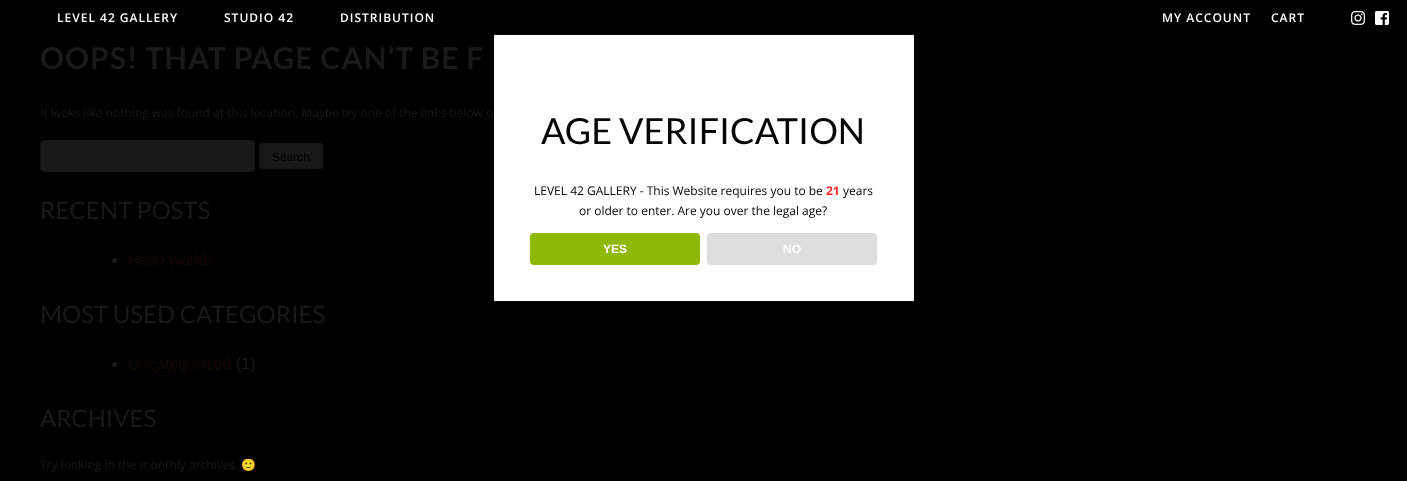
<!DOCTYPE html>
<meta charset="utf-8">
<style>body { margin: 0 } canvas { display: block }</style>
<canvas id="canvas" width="1407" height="481"></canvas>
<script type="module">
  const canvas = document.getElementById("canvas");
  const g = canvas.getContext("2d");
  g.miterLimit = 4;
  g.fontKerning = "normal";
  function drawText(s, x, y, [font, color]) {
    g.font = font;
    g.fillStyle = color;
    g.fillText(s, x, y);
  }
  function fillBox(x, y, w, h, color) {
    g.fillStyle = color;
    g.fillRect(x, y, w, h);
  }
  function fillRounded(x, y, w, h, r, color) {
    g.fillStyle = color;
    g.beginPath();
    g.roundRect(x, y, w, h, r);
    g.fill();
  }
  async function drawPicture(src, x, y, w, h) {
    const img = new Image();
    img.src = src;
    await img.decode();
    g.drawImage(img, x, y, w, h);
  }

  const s1 = ["600 12px Open Sans", "#FFFFFF"];
  const s2 = ["bold 30px Lato", "#191919"];
  const s3 = ["12px Open Sans", "#191919"];
  const s4 = ["12px Liberation Sans", "#050505"];
  const s5 = ["24px Lato", "#191919"];
  const s6 = ["16px Liberation Sans", "#180A01"];
  const s7 = ["16px Liberation Sans", "#191919"];
  const s8 = ["12px Noto Color Emoji", "#191919"];
  const s9 = ["36px Lato", "#050505"];
  const s10 = ["12px Open Sans", "#050505"];
  const s11 = ["bold 12px Open Sans", "#FF1F1F"];
  const s12 = ["bold 12px Liberation Sans", "#FFFFFF"];

  fillBox(0, 0, 1407, 481, "#000000");
  g.letterSpacing = "1px";
  drawText("LEVEL 42 GALLERY", 57, 22, s1);
  drawText("STUDIO 42", 224, 22, s1);
  drawText("DISTRIBUTION", 340, 22, s1);
  drawText("MY ACCOUNT", 1162, 22, s1);
  drawText("CART", 1271, 22, s1);
  await drawPicture("pic1.png", 1351, 11, 14, 14);
  await drawPicture("pic2.png", 1375, 11, 14, 14);
  drawText("OOPS! THAT PAGE CAN’T BE F", 40, 69, s2);
  g.letterSpacing = "0px";
  drawText("It looks like nothing was found at this location. Maybe try one of the links below o", 40, 117, s3);
  g.beginPath();
  g.roundRect(40.5, 140.5, 214, 31, 2.5);
  g.fill();
  g.strokeStyle = "#141414";
  g.stroke();
  fillRounded(259, 143, 64, 26, 3, "#171717");
  g.beginPath();
  g.moveTo(322, 168);
  g.lineTo(321.5, 168);
  g.bezierCurveTo(320.5, 169, 267, 169, 262, 168.5);
  g.lineTo(260, 168);
  g.strokeStyle = "#131313";
  g.stroke();
  g.beginPath();
  g.moveTo(260, 168);
  g.bezierCurveTo(258.5, 166, 259.5, 158.5, 259.5, 156);
  g.bezierCurveTo(259.5, 141.5, 257, 143.5, 271.5, 143.5);
  g.lineTo(310.5, 143.5);
  g.bezierCurveTo(325, 143.5, 322.5, 141.5, 322.5, 156);
  g.bezierCurveTo(322.5, 158.5, 323.5, 166, 322, 168);
  g.strokeStyle = "#141414";
  g.stroke();
  drawText("Search", 272, 161, s4);
  drawText("RECENT POSTS", 40, 219, s5);
  g.beginPath();
  g.arc(114.5, 260.5, 2.5, 0, Math.PI * 2);
  g.fill();
  drawText("Hello world!", 128, 265, s6);
  drawText("MOST USED CATEGORIES", 40, 323, s5);
  g.beginPath();
  g.arc(114.5, 364.5, 2.5, 0, Math.PI * 2);
  g.fill();
  drawText("Uncategorized", 128, 369, s6);
  drawText("(1)", 236, 369, s7);
  drawText("ARCHIVES", 40, 427, s5);
  drawText("Try looking in the monthly archives.", 40, 469, s3);
  drawText("🙂", 241, 469, s8);
  fillBox(494, 35, 420, 266, "#FFFFFF");
  drawText("AGE VERIFICATION", 541, 144, s9);
  drawText("LEVEL 42 GALLERY - This Website requires you to be", 534, 195, s10);
  drawText("21", 826, 195, s11);
  drawText("years", 843, 195, s10);
  drawText("or older to enter. Are you over the legal age?", 579, 215, s10);
  fillRounded(530, 233, 170, 32, 4, "#8EB908");
  drawText("YES", 603, 253, s12);
  fillRounded(707, 233, 170, 32, 4, "#DDDDDD");
  drawText("NO", 783, 253, s12);
</script>
